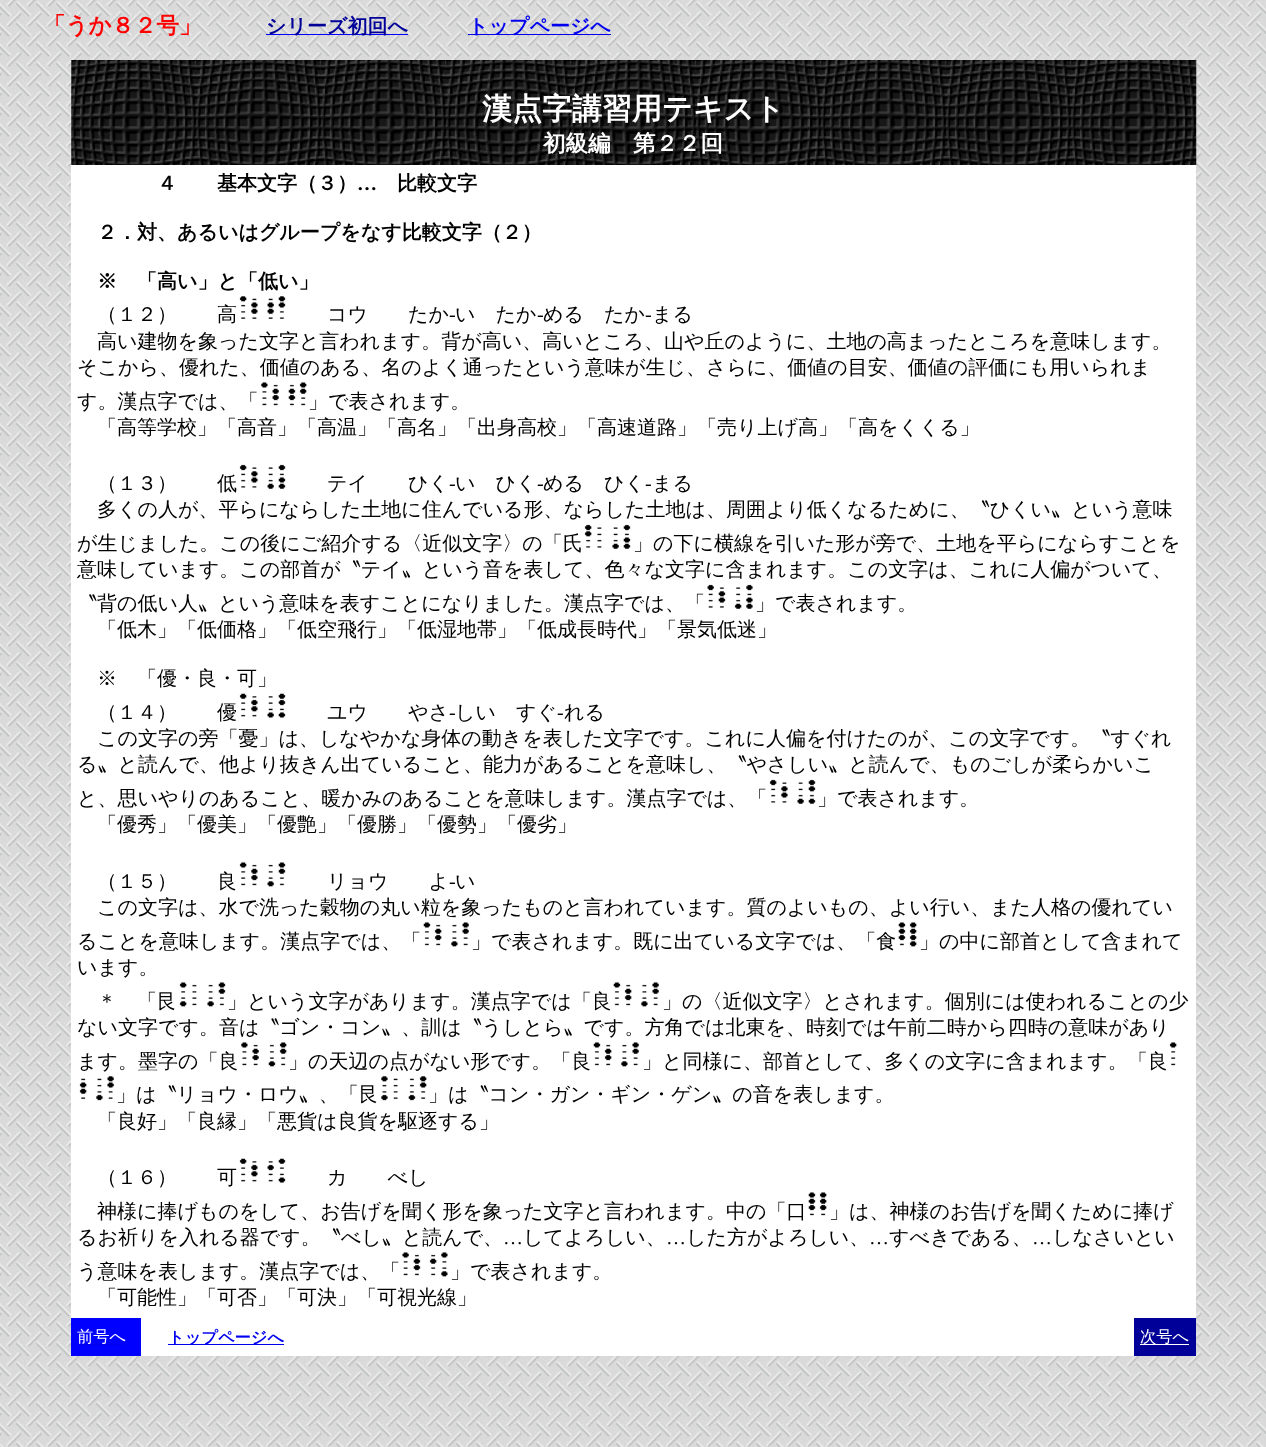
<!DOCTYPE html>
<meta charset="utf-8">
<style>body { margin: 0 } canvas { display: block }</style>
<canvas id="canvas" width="1266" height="1447"></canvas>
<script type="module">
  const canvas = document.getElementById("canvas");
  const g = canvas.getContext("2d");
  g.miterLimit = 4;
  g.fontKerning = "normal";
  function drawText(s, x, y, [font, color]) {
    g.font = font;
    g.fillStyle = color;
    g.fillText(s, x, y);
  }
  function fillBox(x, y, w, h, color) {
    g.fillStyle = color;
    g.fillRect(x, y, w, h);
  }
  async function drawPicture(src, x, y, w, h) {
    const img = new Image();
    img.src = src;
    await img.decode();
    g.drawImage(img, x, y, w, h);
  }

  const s1 = ["bold 22.5px WenQuanYi Zen Hei", "#FF0000"];
  const s2 = ["bold 20px WenQuanYi Zen Hei", "#000099"];
  const s3 = ["bold 20px WenQuanYi Zen Hei", "#0000EE"];
  const s4 = ["bold 30px WenQuanYi Zen Hei", "#FFFFFF"];
  const s5 = ["bold 22.5px WenQuanYi Zen Hei", "#FFFFFF"];
  const s6 = ["bold 20px WenQuanYi Zen Hei", "#000000"];
  const s7 = ["bold 20px Liberation Serif", "#000000"];
  const s8 = ["500 20px WenQuanYi Zen Hei", "#000000"];
  const s9 = ["20px Liberation Serif", "#000000"];
  const s10 = ["500 16.25px WenQuanYi Zen Hei", "#FFFFFF"];
  const s11 = ["bold 16.25px WenQuanYi Zen Hei", "#0000EE"];

  fillBox(0, 0, 1266, 1447, "#FFFFFF");
  await drawPicture("pic1.png", 0, 0, 1266, 1447);
  drawText("「うか８２号」", 43, 33, s1);
  fillBox(266, 34, 142, 1, "#0000FF");
  drawText("シリーズ初回へ", 266, 33, s2);
  fillBox(468, 34, 143, 1, "#0000EE");
  drawText("トップページへ", 468, 33, s3);
  await drawPicture("pic2.png", 71, 60, 1126, 105);
  drawText("漢点字講習用テキスト", 482, 119, s4);
  drawText("初級編　第２２回", 543, 151, s5);
  fillBox(71, 165, 1125, 1153, "#FFFFFF");
  drawText("４　　基本文字（３）", 157, 190, s6);
  drawText("…", 357, 190, s7);
  drawText("比較文字", 397, 190, s6);
  drawText("２．対、あるいはグループをなす比較文字（２）", 97, 239, s6);
  drawText("※　「高い」と「低い」", 97, 288, s6);
  drawText("（１２）　　高", 97, 321, s8);
  await drawPicture("pic3.png", 239, 296, 8, 23);
  await drawPicture("pic4.png", 251, 298, 7, 21);
  await drawPicture("pic5.png", 267, 298, 7, 21);
  await drawPicture("pic6.png", 278, 296, 8, 23);
  drawText("コウ　　たか", 327, 321, s8);
  drawText("‐", 449, 321, s9);
  drawText("い　たか", 455, 321, s8);
  drawText("‐", 537, 321, s9);
  drawText("める　たか", 543, 321, s8);
  drawText("‐", 645, 321, s9);
  drawText("まる", 652, 321, s8);
  drawText("高い建物を象った文字と言われます。背が高い、高いところ、山や丘のように、土地の高まったところを意味します。", 97, 348, s8);
  drawText("そこから、優れた、価値のある、名のよく通ったという意味が生じ、さらに、価値の目安、価値の評価にも用いられま", 77, 374, s8);
  drawText("す。漢点字では、「", 77, 408, s8);
  await drawPicture("pic7.png", 261, 382, 7, 24);
  await drawPicture("pic8.png", 272, 384, 7, 22);
  await drawPicture("pic9.png", 288, 384, 8, 22);
  await drawPicture("pic10.png", 299, 382, 8, 24);
  drawText("」で表されます。", 308, 408, s8);
  drawText("「高等学校」「高音」「高温」「高名」「出身高校」「高速道路」「売り上げ高」「高をくくる」", 97, 434, s8);
  drawText("（１３）　　低", 97, 490, s8);
  await drawPicture("pic11.png", 239, 464, 8, 24);
  await drawPicture("pic12.png", 251, 467, 7, 21);
  await drawPicture("pic13.png", 267, 467, 7, 22);
  await drawPicture("pic14.png", 278, 464, 8, 25);
  drawText("テイ　　ひく", 327, 490, s8);
  drawText("‐", 449, 490, s9);
  drawText("い　ひく", 455, 490, s8);
  drawText("‐", 537, 490, s9);
  drawText("める　ひく", 543, 490, s8);
  drawText("‐", 645, 490, s9);
  drawText("まる", 652, 490, s8);
  drawText("多くの人が、平らにならした土地に住んでいる形、ならした土地は、周囲より低くなるために、〝ひくい〟という意味", 97, 516, s8);
  drawText("が生じました。この後にご紹介する〈近似文字〉の「氏", 77, 550, s8);
  await drawPicture("pic15.png", 584, 524, 8, 24);
  await drawPicture("pic16.png", 597, 527, 5, 21);
  await drawPicture("pic17.png", 612, 527, 7, 22);
  await drawPicture("pic14.png", 623, 524, 8, 25);
  drawText("」の下に横線を引いた形が旁で、土地を平らにならすことを", 633, 550, s8);
  drawText("意味しています。この部首が〝テイ〟という音を表して、色々な文字に含まれます。この文字は、これに人偏がついて、", 77, 576, s8);
  drawText("〝背の低い人〟という意味を表すことになりました。漢点字では、「", 77, 610, s8);
  await drawPicture("pic18.png", 707, 584, 7, 24);
  await drawPicture("pic19.png", 718, 587, 8, 21);
  await drawPicture("pic20.png", 734, 587, 8, 22);
  await drawPicture("pic21.png", 746, 584, 7, 25);
  drawText("」で表されます。", 755, 610, s8);
  drawText("「低木」「低価格」「低空飛行」「低湿地帯」「低成長時代」「景気低迷」", 97, 636, s8);
  drawText("※　「優・良・可」", 97, 685, s8);
  drawText("（１４）　　優", 97, 719, s8);
  await drawPicture("pic22.png", 239, 693, 8, 24);
  await drawPicture("pic23.png", 251, 696, 7, 21);
  await drawPicture("pic24.png", 267, 696, 7, 22);
  await drawPicture("pic25.png", 278, 693, 8, 25);
  drawText("ユウ　　やさ", 327, 719, s8);
  drawText("‐", 449, 719, s9);
  drawText("しい　すぐ", 455, 719, s8);
  drawText("‐", 557, 719, s9);
  drawText("れる", 564, 719, s8);
  drawText("この文字の旁「憂」は、しなやかな身体の動きを表した文字です。これに人偏を付けたのが、この文字です。〝すぐれ", 97, 745, s8);
  drawText("る〟と読んで、他より抜きん出ていること、能力があることを意味し、〝やさしい〟と読んで、ものごしが柔らかいこ", 77, 771, s8);
  drawText("と、思いやりのあること、暖かみのあることを意味します。漢点字では、「", 77, 805, s8);
  await drawPicture("pic11.png", 769, 779, 8, 24);
  await drawPicture("pic26.png", 781, 782, 7, 21);
  await drawPicture("pic27.png", 797, 782, 7, 22);
  await drawPicture("pic28.png", 808, 779, 8, 25);
  drawText("」で表されます。", 817, 805, s8);
  drawText("「優秀」「優美」「優艶」「優勝」「優勢」「優劣」", 97, 831, s8);
  drawText("（１５）　　良", 97, 888, s8);
  await drawPicture("pic29.png", 239, 862, 8, 24);
  await drawPicture("pic30.png", 251, 864, 7, 22);
  await drawPicture("pic31.png", 267, 864, 7, 23);
  await drawPicture("pic32.png", 278, 862, 8, 24);
  drawText("リョウ　　よ", 327, 888, s8);
  drawText("‐", 449, 888, s9);
  drawText("い", 455, 888, s8);
  drawText("この文字は、水で洗った穀物の丸い粒を象ったものと言われています。質のよいもの、よい行い、また人格の優れてい", 97, 914, s8);
  drawText("ることを意味します。漢点字では、「", 77, 948, s8);
  await drawPicture("pic33.png", 423, 922, 8, 24);
  await drawPicture("pic34.png", 434, 924, 8, 22);
  await drawPicture("pic35.png", 451, 924, 7, 23);
  await drawPicture("pic36.png", 462, 922, 7, 24);
  drawText("」で表されます。既に出ている文字では、「食", 471, 948, s8);
  await drawPicture("pic37.png", 898, 922, 8, 24);
  await drawPicture("pic38.png", 909, 922, 8, 25);
  drawText("」の中に部首として含まれて", 919, 948, s8);
  drawText("います。", 77, 974, s8);
  drawText("＊　「艮", 97, 1008, s8);
  await drawPicture("pic39.png", 179, 982, 8, 25);
  await drawPicture("pic40.png", 192, 984, 5, 22);
  await drawPicture("pic41.png", 207, 984, 7, 23);
  await drawPicture("pic32.png", 218, 982, 8, 24);
  drawText("」という文字があります。漢点字では「良", 227, 1008, s8);
  await drawPicture("pic33.png", 613, 982, 8, 24);
  await drawPicture("pic34.png", 624, 984, 8, 22);
  await drawPicture("pic35.png", 641, 984, 7, 23);
  await drawPicture("pic42.png", 652, 982, 7, 24);
  drawText("」の〈近似文字〉とされます。個別には使われることの少", 662, 1008, s8);
  drawText("ない文字です。音は〝ゴン・コン〟、訓は〝うしとら〟です。方角では北東を、時刻では午前二時から四時の意味があり", 77, 1034, s8);
  drawText("ます。墨字の「良", 77, 1068, s8);
  await drawPicture("pic7.png", 241, 1042, 7, 24);
  await drawPicture("pic43.png", 252, 1044, 7, 22);
  await drawPicture("pic44.png", 268, 1044, 8, 23);
  await drawPicture("pic10.png", 279, 1042, 8, 24);
  drawText("」の天辺の点がない形です。「良", 288, 1068, s8);
  await drawPicture("pic33.png", 593, 1042, 8, 24);
  await drawPicture("pic34.png", 604, 1044, 8, 22);
  await drawPicture("pic35.png", 621, 1044, 7, 23);
  await drawPicture("pic42.png", 632, 1042, 7, 24);
  drawText("」と同様に、部首として、多くの文字に含まれます。「良", 642, 1068, s8);
  await drawPicture("pic29.png", 1169, 1042, 8, 24);
  await drawPicture("pic45.png", 79, 1078, 8, 21);
  await drawPicture("pic46.png", 96, 1078, 7, 23);
  await drawPicture("pic47.png", 107, 1076, 7, 23);
  drawText("」は〝リョウ・ロウ〟、「艮", 116, 1101, s8);
  await drawPicture("pic48.png", 381, 1076, 7, 25);
  await drawPicture("pic49.png", 393, 1078, 5, 21);
  await drawPicture("pic50.png", 408, 1078, 8, 23);
  await drawPicture("pic51.png", 419, 1076, 8, 23);
  drawText("」は〝コン・ガン・ギン・ゲン〟の音を表します。", 428, 1101, s8);
  drawText("「良好」「良縁」「悪貨は良貨を駆逐する」", 97, 1128, s8);
  drawText("（１６）　　可", 97, 1184, s8);
  await drawPicture("pic22.png", 239, 1158, 8, 24);
  await drawPicture("pic23.png", 251, 1161, 7, 21);
  await drawPicture("pic52.png", 267, 1161, 7, 21);
  await drawPicture("pic53.png", 278, 1158, 8, 25);
  drawText("カ　　べし", 327, 1184, s8);
  drawText("神様に捧げものをして、お告げを聞く形を象った文字と言われます。中の「口", 97, 1218, s8);
  await drawPicture("pic37.png", 808, 1192, 8, 24);
  await drawPicture("pic54.png", 819, 1192, 8, 24);
  drawText("」は、神様のお告げを聞くために捧げ", 829, 1218, s8);
  drawText("るお祈りを入れる器です。〝べし〟と読んで、", 77, 1244, s8);
  drawText("…", 503, 1244, s9);
  drawText("してよろしい、", 523, 1244, s8);
  drawText("…", 666, 1244, s9);
  drawText("した方がよろしい、", 686, 1244, s8);
  drawText("…", 869, 1244, s9);
  drawText("すべきである、", 889, 1244, s8);
  drawText("…", 1032, 1244, s9);
  drawText("しなさいとい", 1052, 1244, s8);
  drawText("う意味を表します。漢点字では、「", 77, 1278, s8);
  await drawPicture("pic55.png", 402, 1252, 7, 24);
  await drawPicture("pic9.png", 413, 1254, 8, 22);
  await drawPicture("pic56.png", 429, 1254, 8, 22);
  await drawPicture("pic57.png", 441, 1252, 7, 25);
  drawText("」で表されます。", 450, 1278, s8);
  drawText("「可能性」「可否」「可決」「可視光線」", 97, 1304, s8);
  fillBox(71, 1318, 70, 38, "#0000FF");
  fillBox(78, 1344, 48, 1, "#0000EE");
  drawText("前号へ", 77, 1342, s10);
  fillBox(141, 1318, 993, 38, "#FFFFFF");
  fillBox(168, 1344, 116, 1, "#0000EE");
  drawText("トップページへ", 168, 1343, s11);
  fillBox(1134, 1318, 62, 38, "#000099");
  fillBox(1140, 1344, 49, 1, "#FFFFFF");
  drawText("次号へ", 1140, 1342, s10);
</script>
